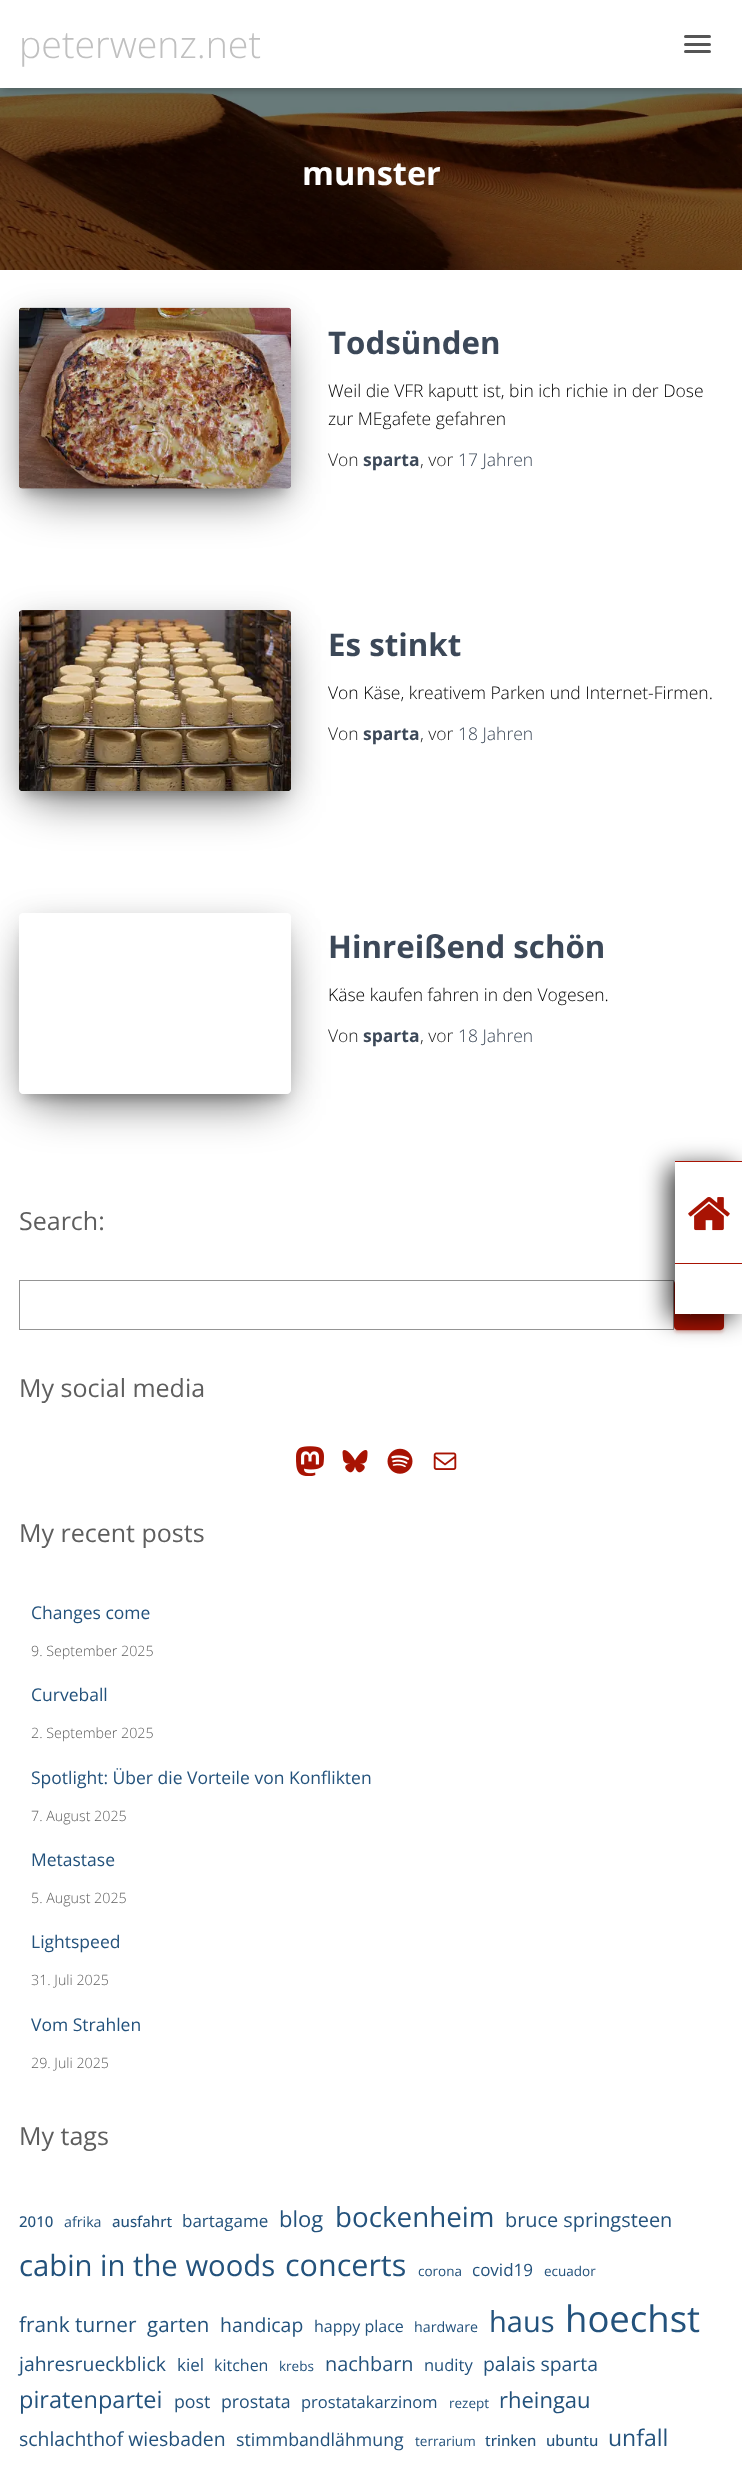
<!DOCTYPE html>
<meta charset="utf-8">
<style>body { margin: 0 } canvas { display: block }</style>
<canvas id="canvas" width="742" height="2474"></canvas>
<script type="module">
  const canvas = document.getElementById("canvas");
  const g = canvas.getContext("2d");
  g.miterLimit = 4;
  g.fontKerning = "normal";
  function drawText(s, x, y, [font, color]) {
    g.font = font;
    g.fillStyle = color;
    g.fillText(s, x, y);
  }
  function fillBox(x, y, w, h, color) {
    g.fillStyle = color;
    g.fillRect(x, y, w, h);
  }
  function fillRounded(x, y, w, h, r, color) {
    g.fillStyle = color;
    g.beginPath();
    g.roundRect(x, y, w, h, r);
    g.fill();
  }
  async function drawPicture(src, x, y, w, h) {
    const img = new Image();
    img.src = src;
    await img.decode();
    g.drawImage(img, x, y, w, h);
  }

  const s1 = ["300 37.5px Open Sans", "#C0C0C0"];
  const s2 = ["bold 32.5px Open Sans", "#FFFFFF"];
  const s3 = ["bold 31.25px Open Sans", "#3C4858"];
  const s4 = ["300 17.5px Open Sans", "#000000"];
  const s5 = ["300 17.5px Open Sans", "#212121"];
  const s6 = ["bold 17.5px Open Sans", "#3C4858"];
  const s7 = ["300 17.5px Open Sans", "#3C4858"];
  const s8 = ["25px Open Sans", "#5E5E5E"];
  const s9 = ["17.5px Open Sans", "#23527C"];
  const s10 = ["300 14.25px Open Sans", "#5E5E5E"];
  const s11 = ["500 15px Open Sans", "#23527C"];
  const s12 = ["14.25px Open Sans", "#23527C"];
  const s13 = ["17px Open Sans", "#23527C"];
  const s14 = ["22px Open Sans", "#23527C"];
  const s15 = ["27.75px Open Sans", "#23527C"];
  const s16 = ["19.9px Open Sans", "#23527C"];
  const s17 = ["29.25px Open Sans", "#23527C"];
  const s18 = ["30.5px Open Sans", "#23527C"];
  const s19 = ["13.5px Open Sans", "#23527C"];
  const s20 = ["20.75px Open Sans", "#23527C"];
  const s21 = ["20.5px Open Sans", "#23527C"];
  const s22 = ["19.4px Open Sans", "#23527C"];
  const s23 = ["16px Open Sans", "#23527C"];
  const s24 = ["29px Open Sans", "#23527C"];
  const s25 = ["36.5px Open Sans", "#23527C"];
  const s26 = ["16.5px Open Sans", "#23527C"];
  const s27 = ["23.5px Open Sans", "#23527C"];
  const s28 = ["17.75px Open Sans", "#23527C"];
  const s29 = ["23px Open Sans", "#23527C"];

  fillBox(0, 0, 742, 2474, "#FFFFFF");
  await drawPicture("pic1.png", 0, 88, 742, 182);
  g.fillStyle = "rgba(0, 0, 0, 0.1)";
  g.filter = "blur(3px)";
  g.beginPath();
  g.rect(3, 8, 737, 82);
  g.fill();
  g.filter = "none";
  g.fillStyle = "rgba(0, 0, 0, 0.12)";
  g.filter = "blur(6px)";
  g.beginPath();
  g.rect(0, 1, 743, 88);
  g.fill();
  g.filter = "none";
  g.fillStyle = "rgba(0, 0, 0, 0.42)";
  g.filter = "blur(6px)";
  g.beginPath();
  g.rect(8, 9, 727, 72);
  g.fill();
  g.filter = "none";
  fillBox(0, 0, 742, 88, "#FFFFFF");
  drawText("peterwenz.net", 19, 58, s1);
  fillRounded(684, 35, 27, 3, 1.5, "#555555");
  fillRounded(684, 43, 27, 3, 1.5, "#555555");
  fillRounded(684, 50, 27, 3, 1.5, "#555555");
  drawText("munster", 302, 185, s2);
  g.fillStyle = "rgba(0, 0, 0, 0.12)";
  g.filter = "blur(19px)";
  g.beginPath();
  g.rect(-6, 271, 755, 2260);
  g.fill();
  g.filter = "none";
  fillBox(0, 270, 742, 2204, "#FFFFFF");
  g.fillStyle = "rgba(0, 0, 0, 0.2)";
  g.filter = "blur(6px)";
  g.beginPath();
  g.rect(25, 324, 260, 169);
  g.fill();
  g.filter = "none";
  g.fillStyle = "rgba(0, 0, 0, 0.12)";
  g.filter = "blur(15.5px)";
  g.beginPath();
  g.roundRect(19, 313, 272, 181, 4);
  g.fill();
  g.filter = "none";
  g.fillStyle = "rgba(0, 0, 0, 0.56)";
  g.filter = "blur(24px)";
  g.beginPath();
  g.rect(34, 343, 242, 151);
  g.fill();
  g.filter = "none";
  await drawPicture("pic2.png", 19, 307, 272, 182);
  drawText("Todsünden", 328, 354, s3);
  drawText("Weil die VFR kaputt ist, bin ich richie in der Dose", 328, 397, s4);
  drawText("zur MEgafete gefahren", 328, 425, s4);
  drawText("Von", 328, 466, s5);
  drawText("sparta", 363, 466, s6);
  drawText(", vor", 420, 466, s5);
  drawText("17 Jahren", 458, 466, s7);
  g.fillStyle = "rgba(0, 0, 0, 0.2)";
  g.filter = "blur(6px)";
  g.beginPath();
  g.rect(25, 626, 260, 169);
  g.fill();
  g.filter = "none";
  g.fillStyle = "rgba(0, 0, 0, 0.12)";
  g.filter = "blur(15.5px)";
  g.beginPath();
  g.roundRect(19, 615, 272, 181, 4);
  g.fill();
  g.filter = "none";
  g.fillStyle = "rgba(0, 0, 0, 0.56)";
  g.filter = "blur(24px)";
  g.beginPath();
  g.rect(34, 645, 242, 151);
  g.fill();
  g.filter = "none";
  await drawPicture("pic3.png", 19, 610, 272, 181);
  drawText("Es stinkt", 328, 656, s3);
  drawText("Von Käse, kreativem Parken und Internet-Firmen.", 328, 699, s4);
  drawText("Von", 328, 740, s5);
  drawText("sparta", 363, 740, s6);
  drawText(", vor", 420, 740, s5);
  drawText("18 Jahren", 458, 740, s7);
  g.save();
  g.beginPath();
  g.moveTo(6, 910);
  g.lineTo(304, 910);
  g.lineTo(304, 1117);
  g.lineTo(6, 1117);
  g.closePath();
  g.moveTo(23, 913);
  g.lineTo(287, 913);
  g.bezierCurveTo(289, 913, 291, 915, 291, 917);
  g.lineTo(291, 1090);
  g.bezierCurveTo(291, 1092, 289, 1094, 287, 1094);
  g.lineTo(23, 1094);
  g.bezierCurveTo(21, 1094, 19, 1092, 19, 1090);
  g.lineTo(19, 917);
  g.bezierCurveTo(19, 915, 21, 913, 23, 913);
  g.closePath();
  g.clip("evenodd");
  g.fillStyle = "rgba(0, 0, 0, 0.2)";
  g.filter = "blur(6px)";
  g.beginPath();
  g.rect(25, 929, 260, 169);
  g.fill();
  g.filter = "none";
  g.restore();
  g.save();
  g.beginPath();
  g.moveTo(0, 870);
  g.lineTo(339, 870);
  g.lineTo(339, 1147);
  g.lineTo(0, 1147);
  g.closePath();
  g.moveTo(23, 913);
  g.lineTo(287, 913);
  g.bezierCurveTo(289, 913, 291, 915, 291, 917);
  g.lineTo(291, 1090);
  g.bezierCurveTo(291, 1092, 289, 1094, 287, 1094);
  g.lineTo(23, 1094);
  g.bezierCurveTo(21, 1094, 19, 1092, 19, 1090);
  g.lineTo(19, 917);
  g.bezierCurveTo(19, 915, 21, 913, 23, 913);
  g.closePath();
  g.clip("evenodd");
  g.fillStyle = "rgba(0, 0, 0, 0.12)";
  g.filter = "blur(15.5px)";
  g.beginPath();
  g.roundRect(19, 918, 272, 181, 4);
  g.fill();
  g.filter = "none";
  g.restore();
  g.save();
  g.beginPath();
  g.moveTo(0, 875);
  g.lineTo(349, 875);
  g.lineTo(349, 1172);
  g.lineTo(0, 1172);
  g.closePath();
  g.moveTo(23, 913);
  g.lineTo(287, 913);
  g.bezierCurveTo(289, 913, 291, 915, 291, 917);
  g.lineTo(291, 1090);
  g.bezierCurveTo(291, 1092, 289, 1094, 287, 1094);
  g.lineTo(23, 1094);
  g.bezierCurveTo(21, 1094, 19, 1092, 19, 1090);
  g.lineTo(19, 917);
  g.bezierCurveTo(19, 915, 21, 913, 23, 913);
  g.closePath();
  g.clip("evenodd");
  g.fillStyle = "rgba(0, 0, 0, 0.56)";
  g.filter = "blur(24px)";
  g.beginPath();
  g.rect(34, 948, 242, 151);
  g.fill();
  g.filter = "none";
  g.restore();
  drawText("Hinreißend schön", 328, 958, s3);
  drawText("Käse kaufen fahren in den Vogesen.", 328, 1001, s4);
  drawText("Von", 328, 1042, s5);
  drawText("sparta", 363, 1042, s6);
  drawText(", vor", 420, 1042, s5);
  drawText("18 Jahren", 458, 1042, s7);
  drawText("Search:", 19, 1230, s8);
  g.strokeStyle = "#949494";
  g.strokeRect(19.5, 1280.5, 654, 49);
  g.fillStyle = "rgba(168, 19, 3, 0.12)";
  g.filter = "blur(3px)";
  g.beginPath();
  g.roundRect(674, 1281, 50, 50, 4);
  g.fill();
  g.filter = "none";
  g.fillStyle = "rgba(168, 19, 3, 0.2)";
  g.filter = "blur(0.5px)";
  g.beginPath();
  g.roundRect(676, 1286, 45, 45, 1);
  g.fill();
  g.filter = "none";
  g.fillStyle = "rgba(168, 19, 3, 0.14)";
  g.filter = "blur(1px)";
  g.beginPath();
  g.roundRect(674, 1283, 50, 50, 4);
  g.fill();
  g.filter = "none";
  fillRounded(674, 1280, 50, 50, 4, "#A81303");
  await drawPicture("pic4.png", 690, 1314, 2, 1);
  drawText("My social media", 19, 1397, s8);
  await drawPicture("pic5.png", 296, 1446, 28, 30);
  await drawPicture("pic6.png", 342, 1450, 26, 23);
  await drawPicture("pic7.png", 387, 1448, 26, 26);
  await drawPicture("pic8.png", 433, 1452, 24, 18);
  drawText("My recent posts", 19, 1542, s8);
  drawText("Changes come", 31, 1619, s9);
  drawText("9. September 2025", 31, 1656, s10);
  drawText("Curveball", 31, 1701, s9);
  drawText("2. September 2025", 31, 1738, s10);
  drawText("Spotlight: Über die Vorteile von Konflikten", 31, 1784, s9);
  drawText("7. August 2025", 31, 1821, s10);
  drawText("Metastase", 31, 1866, s9);
  drawText("5. August 2025", 31, 1903, s10);
  drawText("Lightspeed", 31, 1948, s9);
  drawText("31. Juli 2025", 31, 1985, s10);
  drawText("Vom Strahlen", 31, 2031, s9);
  drawText("29. Juli 2025", 31, 2068, s10);
  drawText("My tags", 19, 2145, s8);
  drawText("2010", 19, 2227, s11);
  drawText("afrika", 64, 2227, s12);
  drawText("ausfahrt", 112, 2227, s11);
  drawText("bartagame", 182, 2227, s13);
  drawText("blog", 279, 2227, s14);
  drawText("bockenheim", 335, 2227, s15);
  drawText("bruce springsteen", 505, 2227, s16);
  drawText("cabin in the woods", 19, 2276, s17);
  drawText("concerts", 285, 2276, s18);
  drawText("corona", 418, 2276, s19);
  drawText("covid19", 472, 2276, s13);
  drawText("ecuador", 544, 2276, s19);
  drawText("frank turner", 19, 2332, s20);
  drawText("garten", 147, 2332, s21);
  drawText("handicap", 220, 2332, s22);
  drawText("happy place", 314, 2332, s23);
  drawText("hardware", 414, 2332, s12);
  drawText("haus", 489, 2332, s24);
  drawText("hoechst", 565, 2332, s25);
  drawText("jahresrueckblick", 19, 2371, s22);
  drawText("kiel", 177, 2371, s13);
  drawText("kitchen", 214, 2371, s23);
  drawText("krebs", 279, 2371, s19);
  drawText("nachbarn", 325, 2371, s16);
  drawText("nudity", 424, 2371, s26);
  drawText("palais sparta", 483, 2371, s22);
  drawText("piratenpartei", 19, 2408, s27);
  drawText("post", 174, 2408, s28);
  drawText("prostata", 221, 2408, s28);
  drawText("prostatakarzinom", 301, 2408, s26);
  drawText("rezept", 449, 2408, s19);
  drawText("rheingau", 499, 2408, s14);
  drawText("schlachthof wiesbaden", 19, 2446, s22);
  drawText("stimmbandlähmung", 236, 2446, s28);
  drawText("terrarium", 415, 2446, s19);
  drawText("trinken", 485, 2446, s11);
  drawText("ubuntu", 546, 2446, s11);
  drawText("unfall", 608, 2446, s29);
  g.fillStyle = "rgba(0, 0, 0, 0.75)";
  g.filter = "blur(12.5px)";
  g.beginPath();
  g.rect(668, 1166, 67, 153);
  g.fill();
  g.filter = "none";
  fillBox(675, 1162, 67, 101, "#FFFFFF");
  fillBox(675, 1161, 67, 1, "#A81303");
  fillBox(675, 1263, 67, 1, "#A81303");
  await drawPicture("pic9.png", 688, 1197, 42, 34);
  fillBox(675, 1264, 67, 50, "#FFFFFF");
</script>
